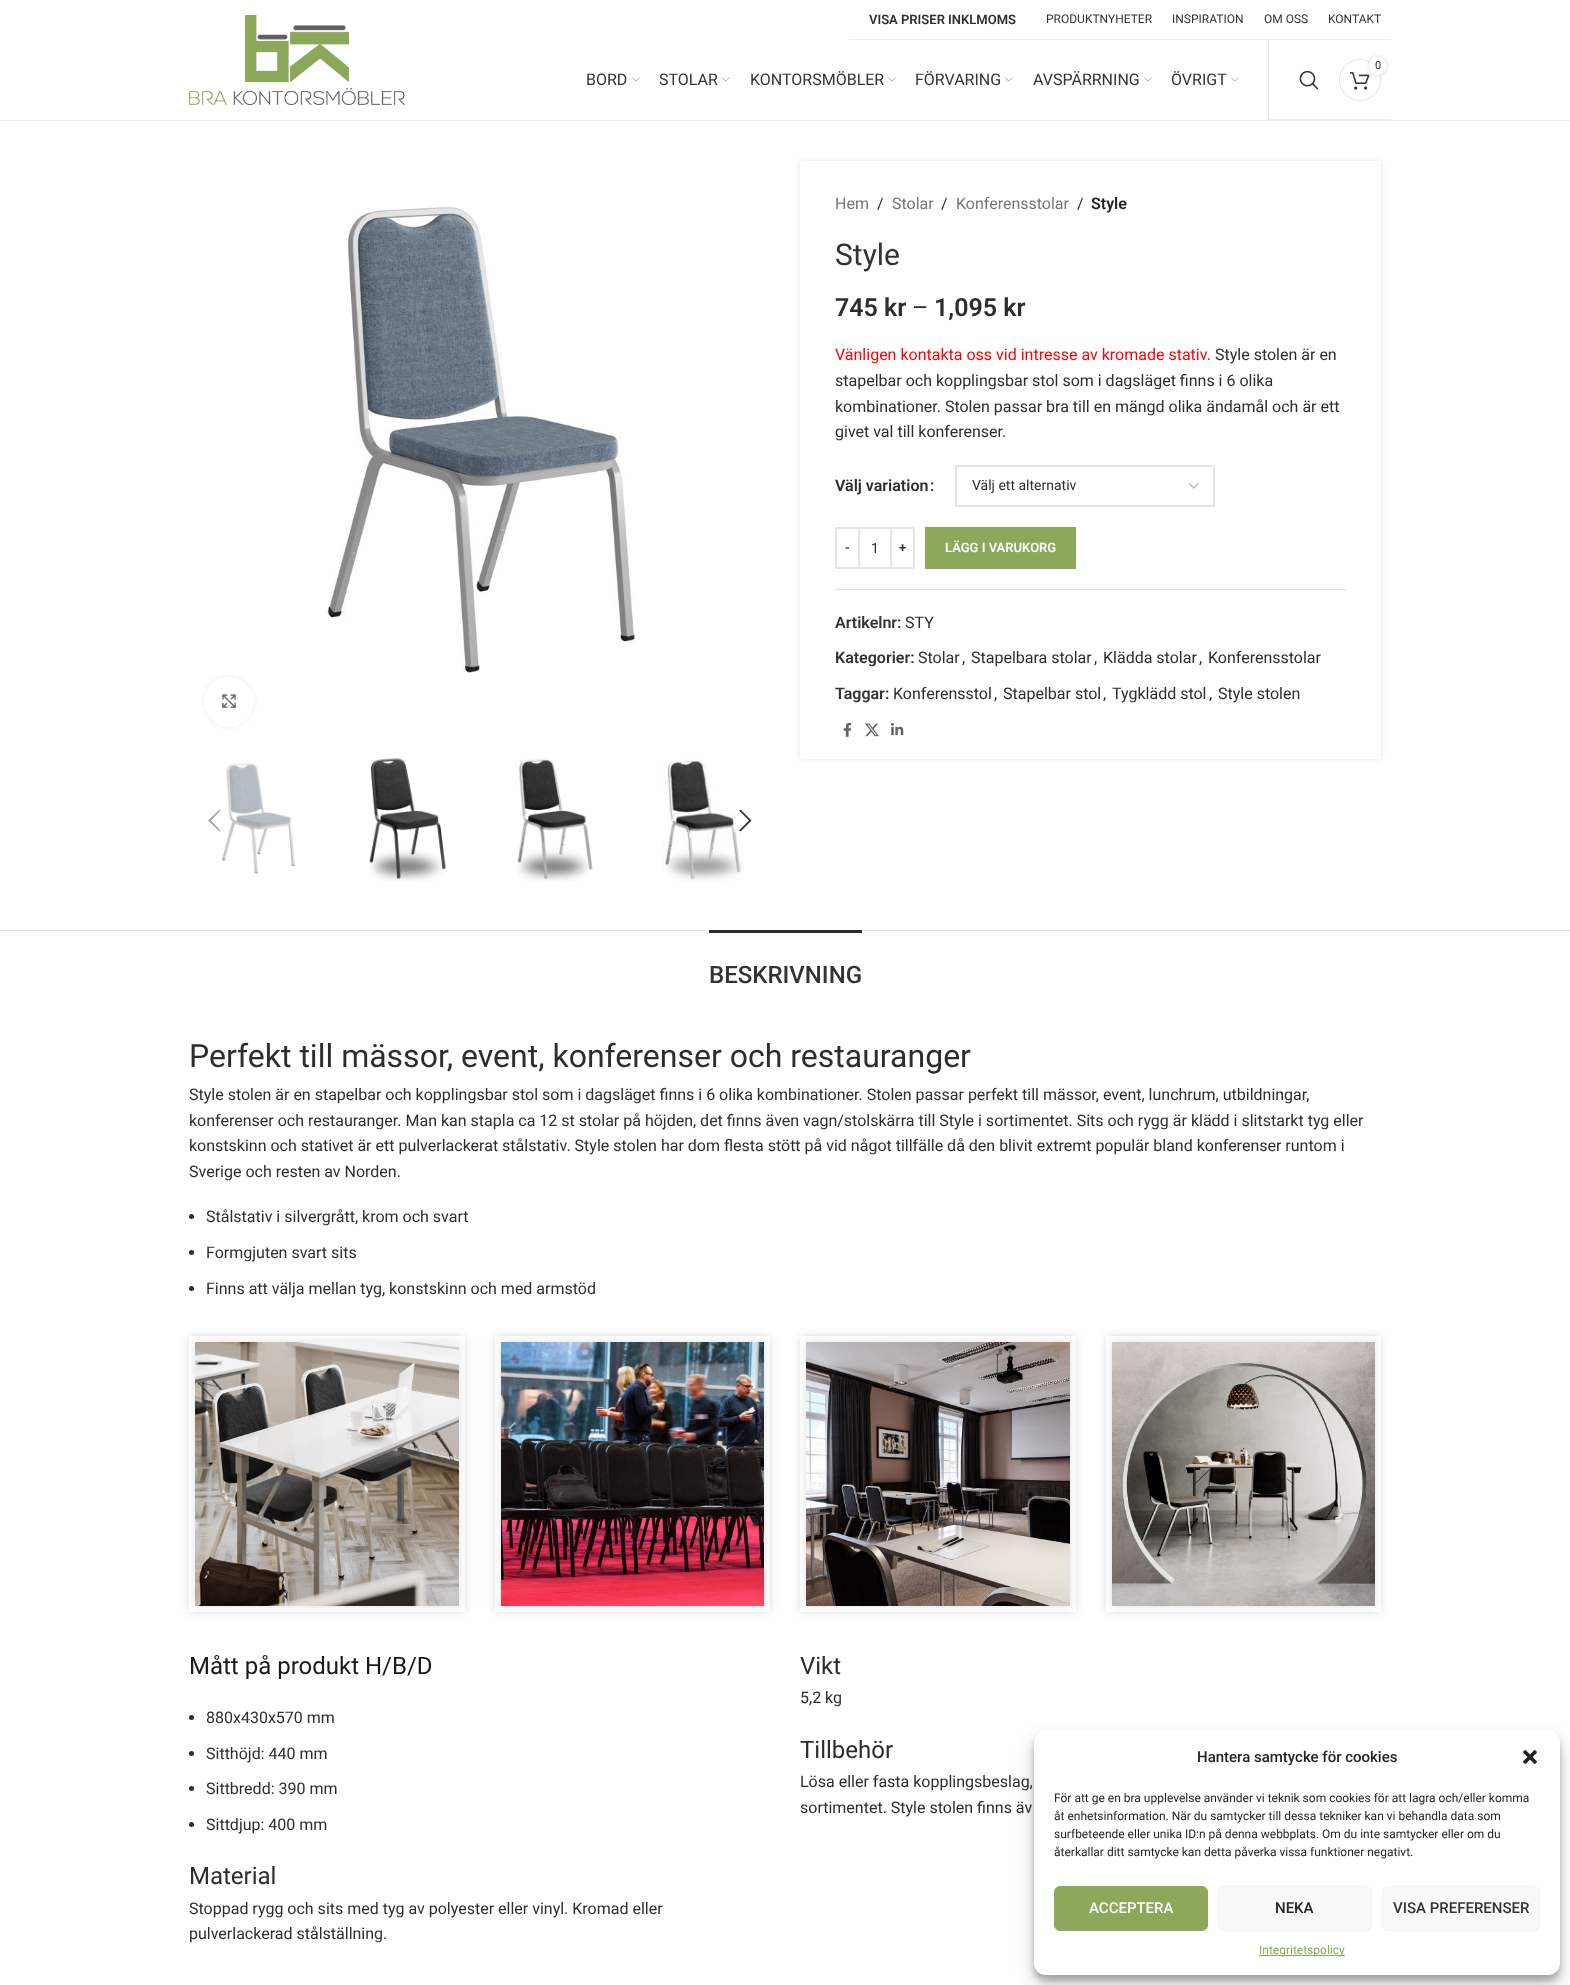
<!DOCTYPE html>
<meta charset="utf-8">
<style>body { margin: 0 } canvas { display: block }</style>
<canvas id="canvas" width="1570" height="1985"></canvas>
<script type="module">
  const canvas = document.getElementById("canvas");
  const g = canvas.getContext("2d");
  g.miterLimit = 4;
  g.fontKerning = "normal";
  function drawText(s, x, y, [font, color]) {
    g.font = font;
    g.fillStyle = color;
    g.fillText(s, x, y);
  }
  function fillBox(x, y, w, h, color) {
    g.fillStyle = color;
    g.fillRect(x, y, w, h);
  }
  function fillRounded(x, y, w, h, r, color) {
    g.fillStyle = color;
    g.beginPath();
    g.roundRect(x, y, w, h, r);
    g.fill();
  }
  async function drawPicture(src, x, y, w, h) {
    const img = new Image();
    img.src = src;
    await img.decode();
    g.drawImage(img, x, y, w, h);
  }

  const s1 = ["600 13px Roboto", "#2D2D2D"];
  const s2 = ["12px Roboto", "#333333"];
  const s3 = ["11px Roboto", "#2D2D2D"];
  const s4 = ["16px Roboto", "#333333"];
  const s5 = ["16px Roboto", "#767676"];
  const s6 = ["16px Roboto", "#2D2D2D"];
  const s7 = ["600 16px Roboto", "#242424"];
  const s8 = ["30px Roboto", "#333333"];
  const s9 = ["600 25px Roboto", "#2D2D2D"];
  const s10 = ["25px Roboto", "#2D2D2D"];
  const s11 = ["16px Roboto", "#FF0000"];
  const s12 = ["600 16px Roboto", "#2D2D2D"];
  const s13 = ["14px Roboto", "#2D2D2D"];
  const s14 = ["600 13px Roboto", "#FFFFFF"];
  const s15 = ["600 16px Roboto", "#333333"];
  const s16 = ["500 24px Roboto", "#333333"];
  const s17 = ["32px Roboto", "#2D2D2D"];
  const s18 = ["24px Roboto", "#1B1919"];
  const s19 = ["24px Roboto", "#2D2D2D"];
  const s20 = ["500 15px Roboto", "#242424"];
  const s21 = ["12px Roboto", "#242424"];
  const s22 = ["500 15px Roboto", "#FFFFFF"];
  const s23 = ["500 15px Roboto", "#333333"];
  const s24 = ["12px Roboto", "#8DA75B"];

  fillBox(0, 0, 1570, 1985, "#FFFFFF");
  fillBox(849, 39, 542, 1, "#EEEEEE");
  drawText("VISA PRISER INKLMOMS", 869, 24, s1);
  drawText("PRODUKTNYHETER", 1046, 23, s2);
  drawText("INSPIRATION", 1172, 23, s2);
  drawText("OM OSS", 1264, 23, s2);
  drawText("KONTAKT", 1328, 23, s2);
  fillBox(0, 120, 1570, 1, "#EEEEEE");
  await drawPicture("pic1.png", 189, 15, 216, 90);
  fillBox(1268, 119, 123, 1, "#EEEEEE");
  fillBox(1268, 40, 1, 79, "#E4E4E4");
  g.beginPath();
  g.arc(1360, 80, 20.5, 0, Math.PI * 2);
  g.strokeStyle = "#E4E4E4";
  g.stroke();
  await drawPicture("pic2.png", 1350, 72, 20, 18);
  g.fillStyle = "rgba(0, 0, 0, 0.17)";
  g.filter = "blur(2px)";
  g.beginPath();
  g.roundRect(1369, 57, 18, 18, 9);
  g.fill();
  g.filter = "none";
  g.fillStyle = "#FFFFFF";
  g.beginPath();
  g.arc(1378, 66, 9, 0, Math.PI * 2);
  g.fill();
  drawText("0", 1375, 69, s3);
  await drawPicture("pic3.png", 1299, 70, 20, 20);
  drawText("BORD", 586, 85, s4);
  await drawPicture("pic4.png", 632, 77, 8, 5);
  drawText("STOLAR", 659, 85, s4);
  await drawPicture("pic4.png", 722, 77, 8, 5);
  drawText("KONTORSMÖBLER", 750, 85, s4);
  await drawPicture("pic4.png", 888, 77, 8, 5);
  drawText("FÖRVARING", 915, 85, s4);
  await drawPicture("pic4.png", 1005, 77, 8, 5);
  drawText("AVSPÄRRNING", 1033, 85, s4);
  await drawPicture("pic4.png", 1144, 77, 8, 5);
  drawText("ÖVRIGT", 1171, 85, s4);
  await drawPicture("pic4.png", 1231, 77, 8, 5);
  await drawPicture("pic5.png", 327, 207, 308, 466);
  g.fillStyle = "rgba(0, 0, 0, 0.08)";
  g.filter = "blur(2.5px)";
  g.beginPath();
  g.roundRect(204, 677, 50, 50, 25);
  g.fill();
  g.filter = "none";
  g.fillStyle = "#FFFFFF";
  g.beginPath();
  g.arc(229, 702, 25, 0, Math.PI * 2);
  g.fill();
  await drawPicture("pic6.png", 222, 694, 14, 14);
  await drawPicture("pic7.png", 222, 763, 73, 111);
  await drawPicture("pic8.png", 369, 758, 77, 124);
  await drawPicture("pic9.png", 517, 758, 76, 124);
  await drawPicture("pic10.png", 662, 759, 82, 123);
  g.fillStyle = "#A5A5A5";
  g.beginPath();
  g.moveTo(220.5, 810.5);
  g.lineTo(219.5, 809.5);
  g.lineTo(208, 820.5);
  g.lineTo(219.5, 831.5);
  g.lineTo(220.5, 830.5);
  g.lineTo(211, 820.5);
  g.closePath();
  g.fill();
  g.fillStyle = "#333333";
  g.beginPath();
  g.moveTo(739, 810.5);
  g.lineTo(749, 820.5);
  g.lineTo(739, 830.5);
  g.lineTo(740.5, 831.5);
  g.lineTo(751.5, 820.5);
  g.lineTo(740.5, 809.5);
  g.closePath();
  g.fill();
  g.save();
  g.beginPath();
  g.moveTo(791, 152);
  g.lineTo(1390, 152);
  g.lineTo(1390, 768);
  g.lineTo(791, 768);
  g.closePath();
  g.moveTo(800, 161);
  g.lineTo(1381, 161);
  g.lineTo(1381, 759);
  g.lineTo(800, 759);
  g.closePath();
  g.clip("evenodd");
  g.fillStyle = "rgba(0, 0, 0, 0.1)";
  g.filter = "blur(2.5px)";
  g.beginPath();
  g.rect(800, 161, 581, 598);
  g.fill();
  g.filter = "none";
  g.restore();
  drawText("Hem", 835, 209, s5);
  drawText("/", 877, 209, s6);
  drawText("Stolar", 892, 209, s5);
  drawText("/", 941, 209, s6);
  drawText("Konferensstolar", 956, 209, s5);
  drawText("/", 1077, 209, s6);
  drawText("Style", 1091, 209, s7);
  drawText("Style", 835, 265, s8);
  drawText("745 kr", 835, 316, s9);
  drawText("–", 912, 316, s10);
  drawText("1,095 kr", 934, 316, s9);
  drawText("Vänligen kontakta oss vid intresse av kromade stativ.", 835, 360, s11);
  drawText("Style stolen är en", 1215, 360, s6);
  drawText("stapelbar och kopplingsbar stol som i dagsläget finns i 6 olika", 835, 386, s6);
  drawText("kombinationer. Stolen passar bra till en mängd olika ändamål och är ett", 835, 412, s6);
  drawText("givet val till konferenser.", 835, 437, s6);
  drawText("Välj variation", 835, 491, s12);
  drawText(":", 930, 491, s12);
  g.beginPath();
  g.moveTo(1189.5, 483.5);
  g.lineTo(1193.5, 488);
  g.lineTo(1198, 483.5);
  g.strokeStyle = "#BBBBBB";
  g.lineWidth = 1.4;
  g.stroke();
  g.strokeStyle = "#E6E6E6";
  g.lineWidth = 2;
  g.strokeRect(956, 466, 258, 40);
  drawText("Välj ett alternativ", 972, 490, s13);
  g.strokeRect(836, 528, 23, 40);
  drawText("-", 845, 552, s1);
  fillBox(860, 527, 30, 2, "#E6E6E6");
  fillBox(860, 567, 30, 2, "#E6E6E6");
  drawText("1", 871, 553, s13);
  g.strokeRect(891, 528, 23, 40);
  drawText("+", 899, 552, s1);
  fillBox(925, 527, 151, 42, "#8DA75B");
  drawText("LÄGG I VARUKORG", 945, 552, s14);
  fillBox(835, 589, 511, 1, "#E4E4E4");
  drawText("Artikelnr:", 835, 628, s15);
  drawText("STY", 905, 628, s6);
  drawText("Kategorier:", 835, 663, s15);
  drawText("Stolar", 918, 663, s6);
  drawText(",", 962, 663, s6);
  drawText("Stapelbara stolar", 971, 663, s6);
  drawText(",", 1094, 663, s6);
  drawText("Klädda stolar", 1103, 663, s6);
  drawText(",", 1199, 663, s6);
  drawText("Konferensstolar", 1208, 663, s6);
  drawText("Taggar:", 835, 699, s15);
  drawText("Konferensstol", 893, 699, s6);
  drawText(",", 994, 699, s6);
  drawText("Stapelbar stol", 1003, 699, s6);
  drawText(",", 1103, 699, s6);
  drawText("Tygklädd stol", 1112, 699, s6);
  drawText(",", 1209, 699, s6);
  drawText("Style stolen", 1218, 699, s6);
  await drawPicture("pic11.png", 843, 722, 9, 15);
  await drawPicture("pic12.png", 865, 723, 14, 14);
  await drawPicture("pic13.png", 891, 722, 13, 14);
  fillBox(0, 930, 1570, 1, "#E4E4E4");
  fillBox(709, 930, 153, 3, "#2D2D2D");
  drawText("BESKRIVNING", 709, 983, s16);
  drawText("Perfekt till mässor, event, konferenser och restauranger", 189, 1067, s17);
  drawText("Style stolen är en stapelbar och kopplingsbar stol som i dagsläget finns i 6 olika kombinationer. Stolen passar perfekt till mässor, event, lunchrum, utbildningar,", 189, 1100, s6);
  drawText("konferenser och restauranger. Man kan stapla ca 12 st stolar på höjden, det finns även vagn/stolskärra till Style i sortimentet. Sits och rygg är klädd i slitstarkt tyg eller", 189, 1126, s6);
  drawText("konstskinn och stativet är ett pulverlackerat stålstativ. Style stolen har dom flesta stött på vid något tillfälle då den blivit extremt populär bland konferenser runtom i", 189, 1151, s6);
  drawText("Sverige och resten av Norden.", 189, 1177, s6);
  g.beginPath();
  g.arc(191.5, 1216.5, 2.5, 0, Math.PI * 2);
  g.fill();
  drawText("Stålstativ i silvergrått, krom och svart", 206, 1222, s6);
  g.beginPath();
  g.arc(191.5, 1252.5, 2.5, 0, Math.PI * 2);
  g.fill();
  drawText("Formgjuten svart sits", 206, 1258, s6);
  g.beginPath();
  g.arc(191.5, 1288.5, 2.5, 0, Math.PI * 2);
  g.fill();
  drawText("Finns att välja mellan tyg, konstskinn och med armstöd", 206, 1294, s6);
  g.save();
  g.beginPath();
  g.moveTo(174, 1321);
  g.lineTo(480, 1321);
  g.lineTo(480, 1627);
  g.lineTo(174, 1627);
  g.closePath();
  g.moveTo(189, 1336);
  g.lineTo(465, 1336);
  g.lineTo(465, 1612);
  g.lineTo(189, 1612);
  g.closePath();
  g.clip("evenodd");
  g.fillStyle = "rgba(0, 0, 0, 0.12)";
  g.filter = "blur(4.5px)";
  g.beginPath();
  g.rect(189, 1336, 276, 276);
  g.fill();
  g.filter = "none";
  g.restore();
  g.fillStyle = "rgba(0, 0, 0, 0.12)";
  g.filter = "blur(4.5px)";
  g.beginPath();
  g.rect(195, 1342, 264, 264);
  g.fill();
  g.filter = "none";
  await drawPicture("pic14.png", 195, 1342, 264, 264);
  g.save();
  g.beginPath();
  g.moveTo(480, 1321);
  g.lineTo(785, 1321);
  g.lineTo(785, 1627);
  g.lineTo(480, 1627);
  g.closePath();
  g.moveTo(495, 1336);
  g.lineTo(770, 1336);
  g.lineTo(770, 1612);
  g.lineTo(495, 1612);
  g.closePath();
  g.clip("evenodd");
  g.filter = "blur(4.5px)";
  g.beginPath();
  g.rect(495, 1336, 275, 276);
  g.fill();
  g.filter = "none";
  g.restore();
  g.filter = "blur(4.5px)";
  g.beginPath();
  g.rect(501, 1342, 263, 264);
  g.fill();
  g.filter = "none";
  await drawPicture("pic15.png", 501, 1342, 263, 264);
  g.save();
  g.beginPath();
  g.moveTo(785, 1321);
  g.lineTo(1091, 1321);
  g.lineTo(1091, 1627);
  g.lineTo(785, 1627);
  g.closePath();
  g.moveTo(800, 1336);
  g.lineTo(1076, 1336);
  g.lineTo(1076, 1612);
  g.lineTo(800, 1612);
  g.closePath();
  g.clip("evenodd");
  g.filter = "blur(4.5px)";
  g.beginPath();
  g.rect(800, 1336, 276, 276);
  g.fill();
  g.filter = "none";
  g.restore();
  g.filter = "blur(4.5px)";
  g.beginPath();
  g.rect(806, 1342, 264, 264);
  g.fill();
  g.filter = "none";
  await drawPicture("pic16.png", 806, 1342, 264, 264);
  g.save();
  g.beginPath();
  g.moveTo(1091, 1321);
  g.lineTo(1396, 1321);
  g.lineTo(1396, 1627);
  g.lineTo(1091, 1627);
  g.closePath();
  g.moveTo(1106, 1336);
  g.lineTo(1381, 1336);
  g.lineTo(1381, 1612);
  g.lineTo(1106, 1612);
  g.closePath();
  g.clip("evenodd");
  g.filter = "blur(4.5px)";
  g.beginPath();
  g.rect(1106, 1336, 275, 276);
  g.fill();
  g.filter = "none";
  g.restore();
  g.filter = "blur(4.5px)";
  g.beginPath();
  g.rect(1112, 1342, 263, 264);
  g.fill();
  g.filter = "none";
  await drawPicture("pic17.png", 1112, 1342, 263, 264);
  drawText("Mått på produkt H/B/D", 189, 1674, s18);
  g.fillStyle = "#2D2D2D";
  g.beginPath();
  g.arc(191.5, 1717.5, 2.5, 0, Math.PI * 2);
  g.fill();
  drawText("880x430x570 mm", 206, 1723, s6);
  g.beginPath();
  g.arc(191.5, 1753.5, 2.5, 0, Math.PI * 2);
  g.fill();
  drawText("Sitthöjd: 440 mm", 206, 1759, s6);
  g.beginPath();
  g.arc(191.5, 1788.5, 2.5, 0, Math.PI * 2);
  g.fill();
  drawText("Sittbredd: 390 mm", 206, 1794, s6);
  g.beginPath();
  g.arc(191.5, 1824.5, 2.5, 0, Math.PI * 2);
  g.fill();
  drawText("Sittdjup: 400 mm", 206, 1830, s6);
  drawText("Material", 189, 1884, s19);
  drawText("Stoppad rygg och sits med tyg av polyester eller vinyl. Kromad eller", 189, 1914, s6);
  drawText("pulverlackerad stålställning.", 189, 1939, s6);
  drawText("Vikt", 800, 1674, s19);
  drawText("5,2 kg", 800, 1703, s6);
  drawText("Tillbehör", 800, 1758, s19);
  drawText("Lösa eller fasta kopplingsbeslag,", 800, 1787, s6);
  drawText("sortimentet. Style stolen finns äv", 800, 1813, s6);
  g.fillStyle = "rgba(0, 0, 0, 0.23)";
  g.filter = "blur(3px)";
  g.beginPath();
  g.roundRect(1034, 1736, 526, 245, 12);
  g.fill();
  g.filter = "none";
  g.fillStyle = "rgba(0, 0, 0, 0.19)";
  g.filter = "blur(10px)";
  g.beginPath();
  g.roundRect(1034, 1740, 526, 245, 12);
  g.fill();
  g.filter = "none";
  fillRounded(1034, 1730, 526, 245, 12, "#FFFFFF");
  drawText("Hantera samtycke för cookies", 1197, 1762, s20);
  await drawPicture("pic18.png", 1523, 1750, 14, 14);
  drawText("För att ge en bra upplevelse använder vi teknik som cookies för att lagra och/eller komma", 1054, 1802, s21);
  drawText("åt enhetsinformation. När du samtycker till dessa tekniker kan vi behandla data som", 1054, 1820, s21);
  drawText("surfbeteende eller unika ID:n på denna webbplats. Om du inte samtycker eller om du", 1054, 1838, s21);
  drawText("återkallar ditt samtycke kan detta påverka vissa funktioner negativt.", 1054, 1856, s21);
  g.fillStyle = "#8DA75B";
  g.beginPath();
  g.roundRect(1054.5, 1886.5, 153, 44, 5.5);
  g.fill();
  g.strokeStyle = "#8DA75B";
  g.lineWidth = 1;
  g.stroke();
  drawText("ACCEPTERA", 1089, 1913, s22);
  g.fillStyle = "#F9F9F9";
  g.beginPath();
  g.roundRect(1218.5, 1886.5, 153, 44, 5.5);
  g.fill();
  g.strokeStyle = "#F2F2F2";
  g.stroke();
  drawText("NEKA", 1275, 1913, s20);
  g.fillStyle = "#F9F9F9";
  g.beginPath();
  g.roundRect(1382.5, 1886.5, 157, 44, 5.5);
  g.fill();
  g.stroke();
  drawText("VISA PREFERENSER", 1393, 1913, s23);
  fillBox(1259, 1955, 86, 1, "#8DA75B");
  drawText("Integritetspolicy", 1259, 1954, s24);
</script>
